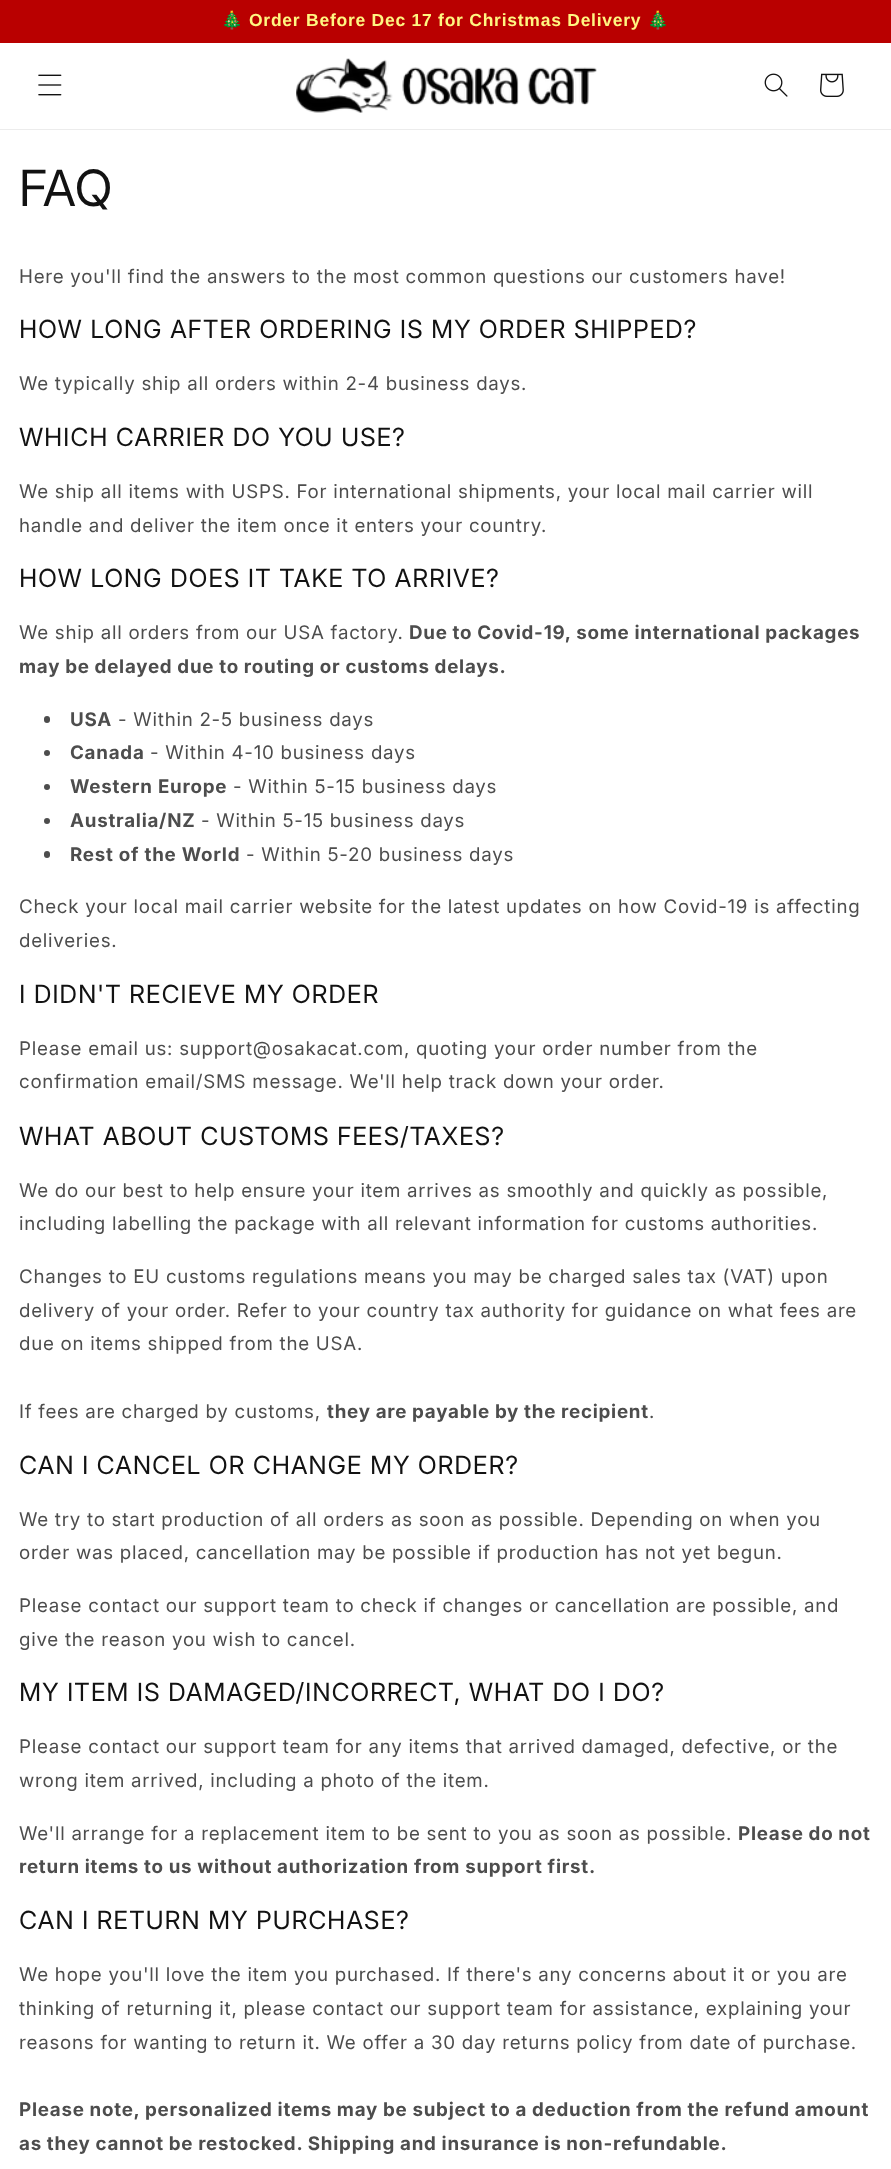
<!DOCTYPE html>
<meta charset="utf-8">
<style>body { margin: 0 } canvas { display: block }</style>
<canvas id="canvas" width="891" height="2169"></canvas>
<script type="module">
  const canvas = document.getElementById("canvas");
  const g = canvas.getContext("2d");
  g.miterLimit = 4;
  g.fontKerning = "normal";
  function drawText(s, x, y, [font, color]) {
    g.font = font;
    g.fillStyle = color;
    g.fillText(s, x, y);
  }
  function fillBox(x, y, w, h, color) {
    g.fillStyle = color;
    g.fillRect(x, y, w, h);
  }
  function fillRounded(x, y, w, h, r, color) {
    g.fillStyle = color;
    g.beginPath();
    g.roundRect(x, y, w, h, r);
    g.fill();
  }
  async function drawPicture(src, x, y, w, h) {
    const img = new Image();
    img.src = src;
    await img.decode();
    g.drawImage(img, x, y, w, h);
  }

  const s1 = ["bold 17.5px Noto Color Emoji", "#FFF681"];
  const s2 = ["bold 17.5px Liberation Sans", "#FFF681"];
  const s3 = ["50px Inter", "#121212"];
  const s4 = ["18.75px 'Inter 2'", "#4D4D4D"];
  const s5 = ["25px 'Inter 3'", "#121212"];
  const s6 = ["bold 18.75px Inter", "#4D4D4D"];

  fillBox(0, 0, 891, 2169, "#FFFFFF");
  fillBox(0, 0, 891, 43, "#B90000");
  g.letterSpacing = "0.75px";
  drawText("🎄", 221, 26, s1);
  drawText("Order Before Dec 17 for Christmas Delivery", 249, 26, s2);
  drawText("🎄", 647, 26, s1);
  fillBox(0, 129, 891, 1, "#ECECEC");
  await drawPicture("pic1.png", 38, 74, 24, 22);
  await drawPicture("pic2.png", 296, 58, 301, 55);
  await drawPicture("pic3.png", 764, 73, 24, 24);
  await drawPicture("pic4.png", 820, 73, 24, 24);
  drawText("FAQ", 19, 206, s3);
  drawText("Here you'll find the answers to the most common questions our customers have!", 19, 283, s4);
  drawText("HOW LONG AFTER ORDERING IS MY ORDER SHIPPED?", 19, 338, s5);
  drawText("We typically ship all orders within 2-4 business days.", 19, 390, s4);
  drawText("WHICH CARRIER DO YOU USE?", 19, 446, s5);
  drawText("We ship all items with USPS. For international shipments, your local mail carrier will", 19, 498, s4);
  drawText("handle and deliver the item once it enters your country.", 19, 532, s4);
  drawText("HOW LONG DOES IT TAKE TO ARRIVE?", 19, 587, s5);
  drawText("We ship all orders from our USA factory.", 19, 639, s4);
  g.wordSpacing = "-0.25px";
  drawText("Due to Covid-19, some international packages", 409, 639, s6);
  drawText("may be delayed due to routing or customs delays.", 19, 673, s6);
  fillRounded(44, 716, 6, 7, 3, "#4D4D4D");
  g.wordSpacing = "0px";
  drawText("USA", 70, 726, s6);
  drawText("- Within 2-5 business days", 118, 726, s4);
  g.beginPath();
  g.arc(47, 753, 3, 0, Math.PI * 2);
  g.fill();
  drawText("Canada", 70, 759, s6);
  drawText("- Within 4-10 business days", 150, 759, s4);
  g.beginPath();
  g.arc(47, 787, 3, 0, Math.PI * 2);
  g.fill();
  drawText("Western Europe", 70, 793, s6);
  drawText("- Within 5-15 business days", 233, 793, s4);
  g.beginPath();
  g.arc(47, 821, 3, 0, Math.PI * 2);
  g.fill();
  drawText("Australia/NZ", 70, 827, s6);
  drawText("- Within 5-15 business days", 201, 827, s4);
  fillRounded(44, 851, 6, 7, 3, "#4D4D4D");
  drawText("Rest of the World", 70, 861, s6);
  drawText("- Within 5-20 business days", 246, 861, s4);
  drawText("Check your local mail carrier website for the latest updates on how Covid-19 is affecting", 19, 913, s4);
  drawText("deliveries.", 19, 947, s4);
  drawText("I DIDN'T RECIEVE MY ORDER", 19, 1003, s5);
  drawText("Please email us: support@osakacat.com, quoting your order number from the", 19, 1055, s4);
  drawText("confirmation email/SMS message. We'll help track down your order.", 19, 1088, s4);
  drawText("WHAT ABOUT CUSTOMS FEES/TAXES?", 19, 1145, s5);
  drawText("We do our best to help ensure your item arrives as smoothly and quickly as possible,", 19, 1197, s4);
  drawText("including labelling the package with all relevant information for customs authorities.", 19, 1230, s4);
  drawText("Changes to EU customs regulations means you may be charged sales tax (VAT) upon", 19, 1283, s4);
  drawText("delivery of your order. Refer to your country tax authority for guidance on what fees are", 19, 1317, s4);
  drawText("due on items shipped from the USA.", 19, 1350, s4);
  drawText("If fees are charged by customs,", 19, 1418, s4);
  g.wordSpacing = "-0.25px";
  drawText("they are payable by the recipient", 327, 1418, s6);
  g.wordSpacing = "0px";
  drawText(".", 649, 1418, s4);
  drawText("CAN I CANCEL OR CHANGE MY ORDER?", 19, 1474, s5);
  drawText("We try to start production of all orders as soon as possible. Depending on when you", 19, 1526, s4);
  drawText("order was placed, cancellation may be possible if production has not yet begun.", 19, 1559, s4);
  drawText("Please contact our support team to check if changes or cancellation are possible, and", 19, 1612, s4);
  drawText("give the reason you wish to cancel.", 19, 1646, s4);
  drawText("MY ITEM IS DAMAGED/INCORRECT, WHAT DO I DO?", 19, 1701, s5);
  drawText("Please contact our support team for any items that arrived damaged, defective, or the", 19, 1753, s4);
  drawText("wrong item arrived, including a photo of the item.", 19, 1787, s4);
  drawText("We'll arrange for a replacement item to be sent to you as soon as possible.", 19, 1840, s4);
  g.wordSpacing = "-0.25px";
  drawText("Please do not", 738, 1840, s6);
  drawText("return items to us without authorization from support first.", 19, 1873, s6);
  g.wordSpacing = "0px";
  drawText("CAN I RETURN MY PURCHASE?", 19, 1929, s5);
  drawText("We hope you'll love the item you purchased. If there's any concerns about it or you are", 19, 1981, s4);
  drawText("thinking of returning it, please contact our support team for assistance, explaining your", 19, 2015, s4);
  drawText("reasons for wanting to return it. We offer a 30 day returns policy from date of purchase.", 19, 2049, s4);
  g.wordSpacing = "-0.25px";
  drawText("Please note, personalized items may be subject to a deduction from the refund amount", 19, 2116, s6);
  drawText("as they cannot be restocked. Shipping and insurance is non-refundable.", 19, 2150, s6);
</script>
